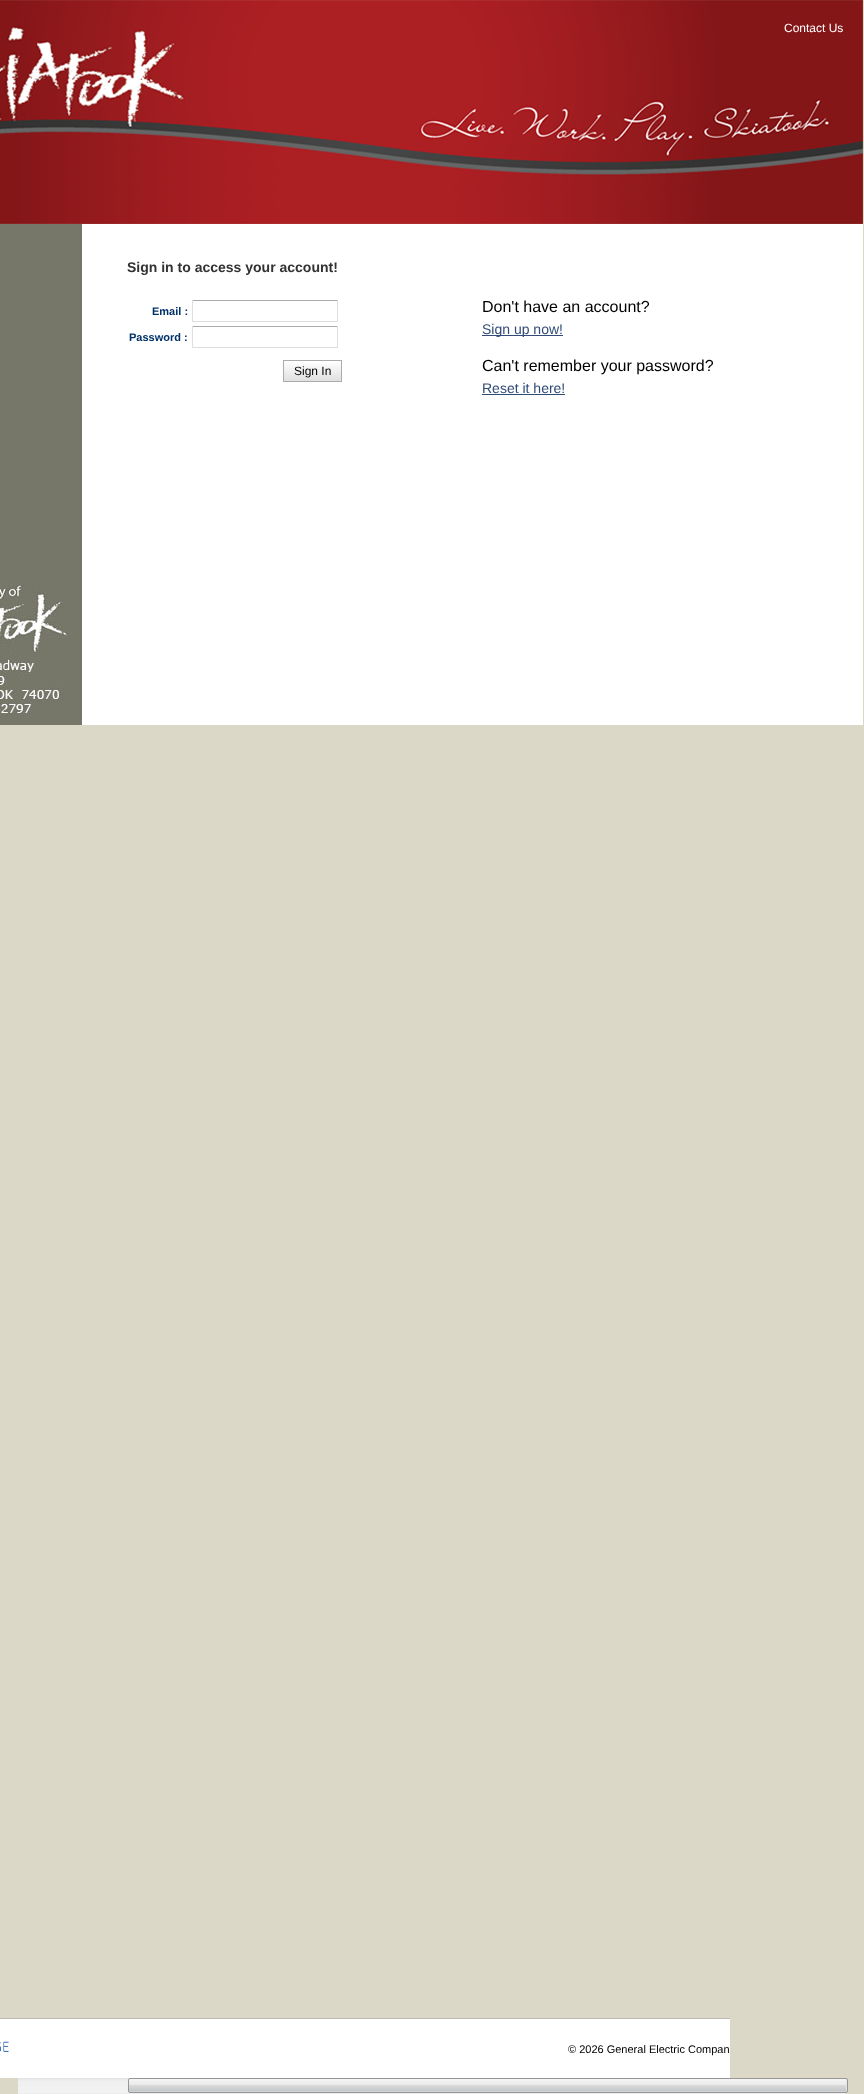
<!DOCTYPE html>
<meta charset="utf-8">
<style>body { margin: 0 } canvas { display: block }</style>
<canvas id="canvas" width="864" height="2094"></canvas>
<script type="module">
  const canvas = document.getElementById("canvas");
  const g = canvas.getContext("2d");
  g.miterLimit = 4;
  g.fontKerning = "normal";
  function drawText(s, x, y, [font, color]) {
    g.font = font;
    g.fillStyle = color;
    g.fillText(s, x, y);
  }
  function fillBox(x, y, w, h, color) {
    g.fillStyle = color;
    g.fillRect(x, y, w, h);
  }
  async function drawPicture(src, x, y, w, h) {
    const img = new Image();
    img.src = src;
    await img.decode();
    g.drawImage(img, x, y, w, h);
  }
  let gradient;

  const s1 = ["12px Liberation Sans", "#FFFFFF"];
  const s2 = ["bold 14px Liberation Sans", "#323232"];
  const s3 = ["bold 11px Liberation Sans", "#003168"];
  const s4 = ["12px Liberation Sans", "#000000"];
  const s5 = ["16px Liberation Sans", "#000000"];
  const s6 = ["14px Liberation Sans", "#314B77"];
  const s7 = ["11px Liberation Sans", "#000000"];

  fillBox(0, 0, 864, 2094, "#DBD8C7");
  await drawPicture("pic1.png", 0, 0, 863, 224);
  drawText("Contact Us", 784, 32, s1);
  await drawPicture("pic2.png", 0, 224, 863, 500);
  drawText("Sign in to access your account!", 127, 272, s2);
  drawText("Email :", 152, 315, s3);
  fillBox(192, 300, 146, 1, "#ABABAB");
  fillBox(337, 300, 1, 22, "#DEDEDE");
  fillBox(192, 321, 146, 1, "#DEDEDE");
  fillBox(192, 300, 1, 22, "#DEDEDE");
  drawText("Password :", 129, 341, s3);
  fillBox(192, 326, 146, 1, "#ABABAB");
  fillBox(337, 326, 1, 22, "#DEDEDE");
  fillBox(192, 347, 146, 1, "#DEDEDE");
  fillBox(192, 326, 1, 22, "#DEDEDE");
  gradient = g.createLinearGradient(313, 361, 313, 381);
  gradient.addColorStop(0, "#FFFFFF");
  gradient.addColorStop(1, "#E0E0E0");
  g.fillStyle = gradient;
  g.fillRect(284, 363, 57, 18);
  g.strokeStyle = "#ABABAB";
  g.strokeRect(283.5, 360.5, 58, 21);
  drawText("Sign In", 294, 375, s4);
  drawText("Don't have an account?", 482, 312, s5);
  fillBox(482, 335, 81, 1, "#314B77");
  drawText("Sign up now!", 482, 334, s6);
  drawText("Can't remember your password?", 482, 371, s5);
  drawText("Reset it here!", 482, 393, s6);
  fillBox(482, 394, 83, 1, "#314B77");
  await drawPicture("pic3.png", 0, 581, 70, 136);
  await drawPicture("pic4.png", 0, 724, 863, 1);
  fillBox(0, 2019, 730, 59, "#FFFFFF");
  fillBox(0, 2018, 730, 1, "#C0B9B1");
  await drawPicture("pic5.png", 0, 2041, 11, 16);
  drawText("© 2026 General Electric Compan", 568, 2053, s7);
  gradient = g.createLinearGradient(432, 2078, 432, 2094);
  gradient.addColorStop(0, "#E3E3E3");
  gradient.addColorStop(0.2, "#EFEFEF");
  gradient.addColorStop(0.9, "#F2F2F2");
  gradient.addColorStop(1, "#EAEAEA");
  g.fillStyle = gradient;
  g.fillRect(18, 2078, 828, 16);
  g.save();
  g.beginPath();
  g.roundRect(128, 2078, 720, 15, 2);
  g.clip();
  gradient = g.createLinearGradient(488, 2079, 488, 2092);
  gradient.addColorStop(0, "#F5F5F5");
  gradient.addColorStop(0.5, "#E8E8E9");
  gradient.addColorStop(0.5, "#D7D9DA");
  gradient.addColorStop(0.82, "#CACCCE");
  gradient.addColorStop(1, "#C0C2C4");
  g.fillStyle = gradient;
  g.fillRect(128, 2079, 720, 13);
  g.restore();
  g.fillStyle = "#E5E5E6";
  g.beginPath();
  g.moveTo(845, 2092);
  g.bezierCurveTo(847, 2092, 847, 2091.5, 847, 2089);
  g.lineTo(847, 2082);
  g.bezierCurveTo(847, 2079.5, 847, 2079, 845, 2079);
  g.bezierCurveTo(845.5, 2079, 846, 2079.5, 846, 2080);
  g.lineTo(846, 2091);
  g.bezierCurveTo(846, 2091.5, 845.5, 2092, 845, 2092);
  g.closePath();
  g.fill();
  g.fillStyle = "#D2D3D5";
  g.beginPath();
  g.moveTo(129, 2090);
  g.lineTo(129, 2092);
  g.lineTo(846, 2092);
  g.lineTo(847, 2091);
  g.lineTo(847, 2090);
  g.lineTo(846, 2091);
  g.lineTo(130, 2091);
  g.closePath();
  g.fill();
  g.beginPath();
  g.roundRect(128.5, 2078.5, 719, 14, 1.5);
  g.strokeStyle = "#969696";
  g.stroke();
</script>
